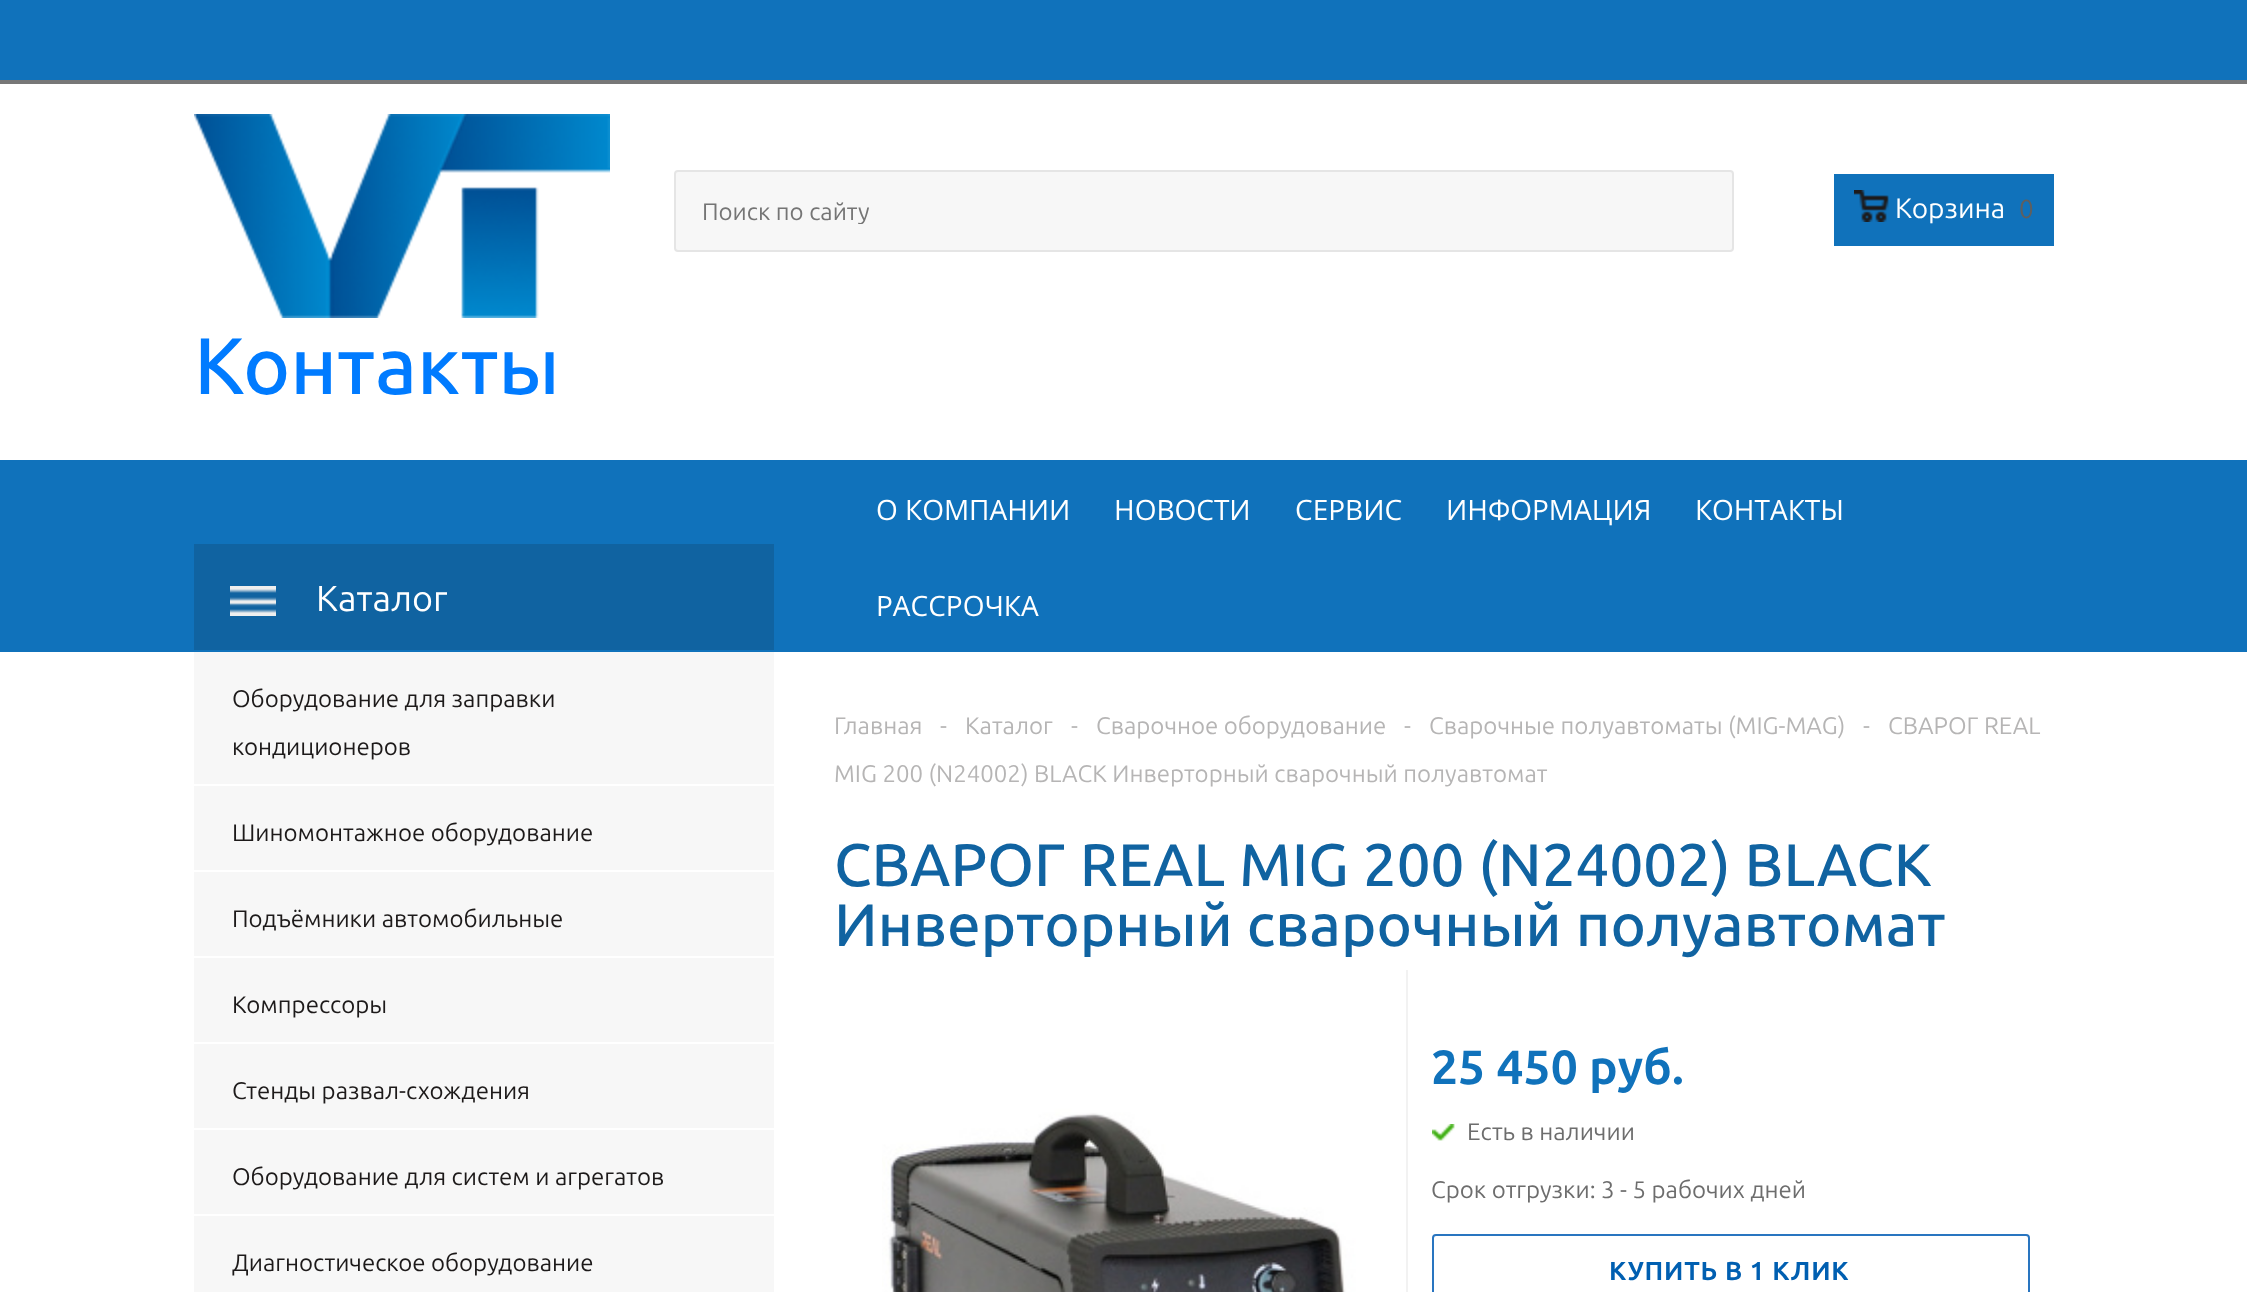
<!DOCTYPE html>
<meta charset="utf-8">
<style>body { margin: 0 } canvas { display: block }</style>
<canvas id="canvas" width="2247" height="1292"></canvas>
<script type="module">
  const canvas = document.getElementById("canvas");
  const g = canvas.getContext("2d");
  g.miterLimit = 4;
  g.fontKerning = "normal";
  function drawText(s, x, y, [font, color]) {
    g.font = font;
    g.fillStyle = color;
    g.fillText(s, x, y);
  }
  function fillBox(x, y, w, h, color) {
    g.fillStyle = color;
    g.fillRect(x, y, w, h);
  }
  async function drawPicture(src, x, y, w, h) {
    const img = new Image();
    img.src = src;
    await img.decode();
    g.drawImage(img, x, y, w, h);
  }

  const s1 = ["24px Ubuntu", "#757575"];
  const s2 = ["28px Ubuntu", "#FFFFFF"];
  const s3 = ["26px Ubuntu", "#5F5F5F"];
  const s4 = ["500 80px Ubuntu", "#007BFF"];
  const s5 = ["28px Open Sans", "#FFFFFF"];
  const s6 = ["36px Ubuntu", "#FFFFFF"];
  const s7 = ["24px Ubuntu", "#1D1A1A"];
  const s8 = ["24px Ubuntu", "#B6B5B5"];
  const s9 = ["500 60px Ubuntu", "#1063A1"];
  const s10 = ["bold 48px Ubuntu", "#1072BB"];
  const s11 = ["24px Ubuntu", "#6D6D6D"];
  const s12 = ["bold 26px Ubuntu", "#005FB1"];

  fillBox(0, 0, 2247, 1292, "#FFFFFF");
  fillBox(0, 0, 2247, 80, "#1072BB");
  fillBox(0, 80, 2247, 4, "#777777");
  g.fillStyle = "#F7F7F7";
  g.beginPath();
  g.roundRect(675, 171, 1058, 80, 3);
  g.fill();
  g.strokeStyle = "#E5E5E5";
  g.lineWidth = 2;
  g.stroke();
  g.save();
  g.beginPath();
  g.rect(702, 198, 1004, 26);
  g.clip();
  drawText("Поиск по сайту", 702, 220, s1);
  g.restore();
  fillBox(1834, 174, 220, 72, "#1072BB");
  await drawPicture("pic1.png", 1854, 190, 35, 32);
  drawText("Корзина", 1895, 218, s2);
  drawText("0", 2019, 218, s3);
  await drawPicture("pic2.png", 194, 114, 416, 204);
  drawText("Контакты", 194, 394, s4);
  fillBox(0, 460, 2247, 192, "#1072BB");
  drawText("О КОМПАНИИ", 876, 520, s5);
  drawText("НОВОСТИ", 1114, 520, s5);
  drawText("СЕРВИС", 1295, 520, s5);
  drawText("ИНФОРМАЦИЯ", 1446, 520, s5);
  drawText("КОНТАКТЫ", 1695, 520, s5);
  drawText("РАССРОЧКА", 876, 616, s5);
  fillBox(194, 544, 580, 106, "#1063A1");
  await drawPicture("pic3.png", 230, 586, 46, 30);
  drawText("Каталог", 316, 611, s6);
  fillBox(194, 652, 580, 132, "#F7F7F7");
  drawText("Оборудование для заправки", 232, 707, s7);
  drawText("кондиционеров", 232, 755, s7);
  fillBox(194, 786, 580, 84, "#F7F7F7");
  drawText("Шиномонтажное оборудование", 232, 841, s7);
  fillBox(194, 872, 580, 84, "#F7F7F7");
  drawText("Подъёмники автомобильные", 232, 927, s7);
  fillBox(194, 958, 580, 84, "#F7F7F7");
  drawText("Компрессоры", 232, 1013, s7);
  fillBox(194, 1044, 580, 84, "#F7F7F7");
  drawText("Стенды развал-схождения", 232, 1099, s7);
  fillBox(194, 1130, 580, 84, "#F7F7F7");
  drawText("Оборудование для систем и агрегатов", 232, 1185, s7);
  fillBox(194, 1216, 580, 76, "#F7F7F7");
  drawText("Диагностическое оборудование", 232, 1271, s7);
  drawText("Главная", 834, 734, s8);
  drawText("-", 940, 734, s8);
  drawText("Каталог", 965, 734, s8);
  drawText("-", 1071, 734, s8);
  drawText("Сварочное оборудование", 1096, 734, s8);
  drawText("-", 1404, 734, s8);
  drawText("Сварочные полуавтоматы (MIG-MAG)", 1429, 734, s8);
  drawText("-", 1863, 734, s8);
  drawText("СВАРОГ REAL", 1888, 734, s8);
  drawText("MIG 200 (N24002) BLACK Инверторный сварочный полуавтомат", 834, 782, s8);
  drawText("СВАРОГ REAL MIG 200 (N24002) BLACK", 834, 886, s9);
  drawText("Инверторный сварочный полуавтомат", 834, 946, s9);
  await drawPicture("pic4.png", 882, 1066, 524, 226);
  fillBox(1406, 970, 2, 322, "#F2F2F2");
  drawText("25 450 руб.", 1431, 1084, s10);
  await drawPicture("pic5.png", 1432, 1124, 23, 17);
  drawText("Есть в наличии", 1467, 1140, s11);
  drawText("Срок отгрузки: 3 - 5 рабочих дней", 1431, 1198, s11);
  g.beginPath();
  g.roundRect(1433, 1235, 596, 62, 3);
  g.strokeStyle = "#2975C0";
  g.stroke();
  g.letterSpacing = "0.75px";
  drawText("КУПИТЬ В 1 КЛИК", 1609, 1280, s12);
</script>
